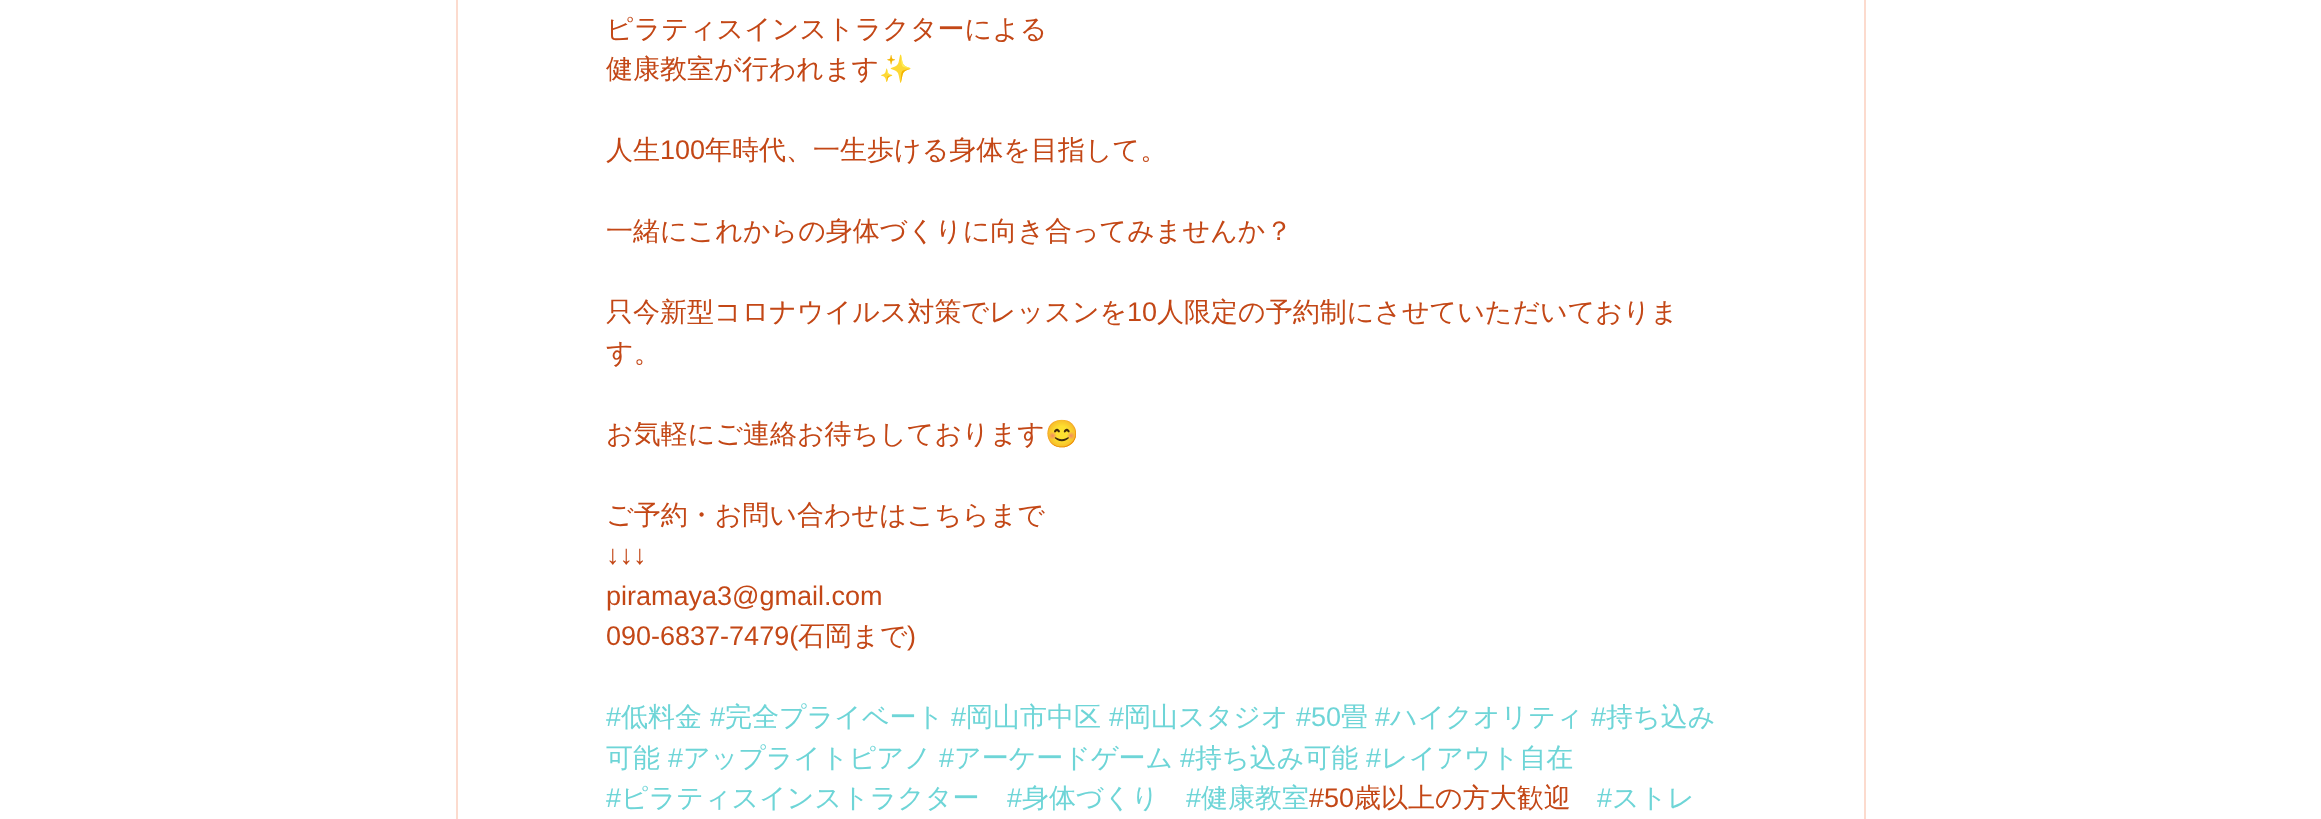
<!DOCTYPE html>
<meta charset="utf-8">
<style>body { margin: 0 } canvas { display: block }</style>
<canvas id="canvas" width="2321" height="819"></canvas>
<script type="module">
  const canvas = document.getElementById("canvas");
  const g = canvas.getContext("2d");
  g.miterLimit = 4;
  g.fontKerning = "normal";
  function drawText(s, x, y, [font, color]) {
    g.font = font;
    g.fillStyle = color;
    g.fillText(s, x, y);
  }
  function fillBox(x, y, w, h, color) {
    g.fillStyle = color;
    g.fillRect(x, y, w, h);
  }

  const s1 = ["500 27px WenQuanYi Zen Hei", "#C34716"];
  const s2 = ["27px Noto Color Emoji", "#C34716"];
  const s3 = ["27px Liberation Sans", "#C34716"];
  const s4 = ["27px Liberation Sans", "#6ED5D7"];
  const s5 = ["500 27px WenQuanYi Zen Hei", "#6ED5D7"];

  fillBox(0, 0, 2321, 819, "#FFFFFF");
  g.strokeStyle = "#FCDBCE";
  g.lineWidth = 2;
  g.strokeRect(457, -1, 1408, 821);
  drawText("ピラティスインストラクターによる", 606, 38, s1);
  drawText("健康教室が行われます", 606, 78, s1);
  drawText("✨", 879, 78, s2);
  drawText("人生", 606, 159, s1);
  drawText("100", 660, 159, s3);
  drawText("年時代、一生歩ける身体を目指して。", 705, 159, s1);
  drawText("一緒にこれからの身体づくりに向き合ってみませんか？", 606, 240, s1);
  drawText("只今新型コロナウイルス対策でレッスンを", 606, 321, s1);
  drawText("10", 1127, 321, s3);
  drawText("人限定の予約制にさせていただいておりま", 1157, 321, s1);
  drawText("す。", 606, 362, s1);
  drawText("お気軽にご連絡お待ちしております", 606, 443, s1);
  drawText("😊", 1045, 443, s2);
  drawText("ご予約・お問い合わせはこちらまで", 606, 524, s1);
  drawText("↓↓↓", 606, 564, s3);
  drawText("piramaya3@gmail.com", 606, 605, s3);
  drawText("090-6837-7479(", 606, 645, s3);
  drawText("石岡まで", 798, 645, s1);
  drawText(")", 907, 645, s3);
  drawText("#", 606, 726, s4);
  drawText("低料金", 621, 726, s5);
  drawText("#", 710, 726, s4);
  drawText("完全プライベート", 725, 726, s5);
  drawText("#", 951, 726, s4);
  drawText("岡山市中区", 966, 726, s5);
  drawText("#", 1109, 726, s4);
  drawText("岡山スタジオ", 1124, 726, s5);
  drawText("#50", 1296, 726, s4);
  drawText("畳", 1341, 726, s5);
  drawText("#", 1375, 726, s4);
  drawText("ハイクオリティ", 1390, 726, s5);
  drawText("#", 1591, 726, s4);
  drawText("持ち込み", 1606, 726, s5);
  drawText("可能", 606, 767, s5);
  drawText("#", 668, 767, s4);
  drawText("アップライトピアノ", 683, 767, s5);
  drawText("#", 939, 767, s4);
  drawText("アーケードゲーム", 954, 767, s5);
  drawText("#", 1180, 767, s4);
  drawText("持ち込み可能", 1195, 767, s5);
  drawText("#", 1366, 767, s4);
  drawText("レイアウト自在", 1381, 767, s5);
  drawText("#", 606, 807, s4);
  drawText("ピラティスインストラクター", 621, 807, s5);
  drawText("#", 1007, 807, s4);
  drawText("身体づくり", 1022, 807, s5);
  drawText("#", 1186, 807, s4);
  drawText("健康教室", 1201, 807, s5);
  drawText("#50", 1309, 807, s3);
  drawText("歳以上の方大歓迎", 1354, 807, s1);
  drawText("#", 1597, 807, s4);
  drawText("ストレ", 1612, 807, s5);
</script>
